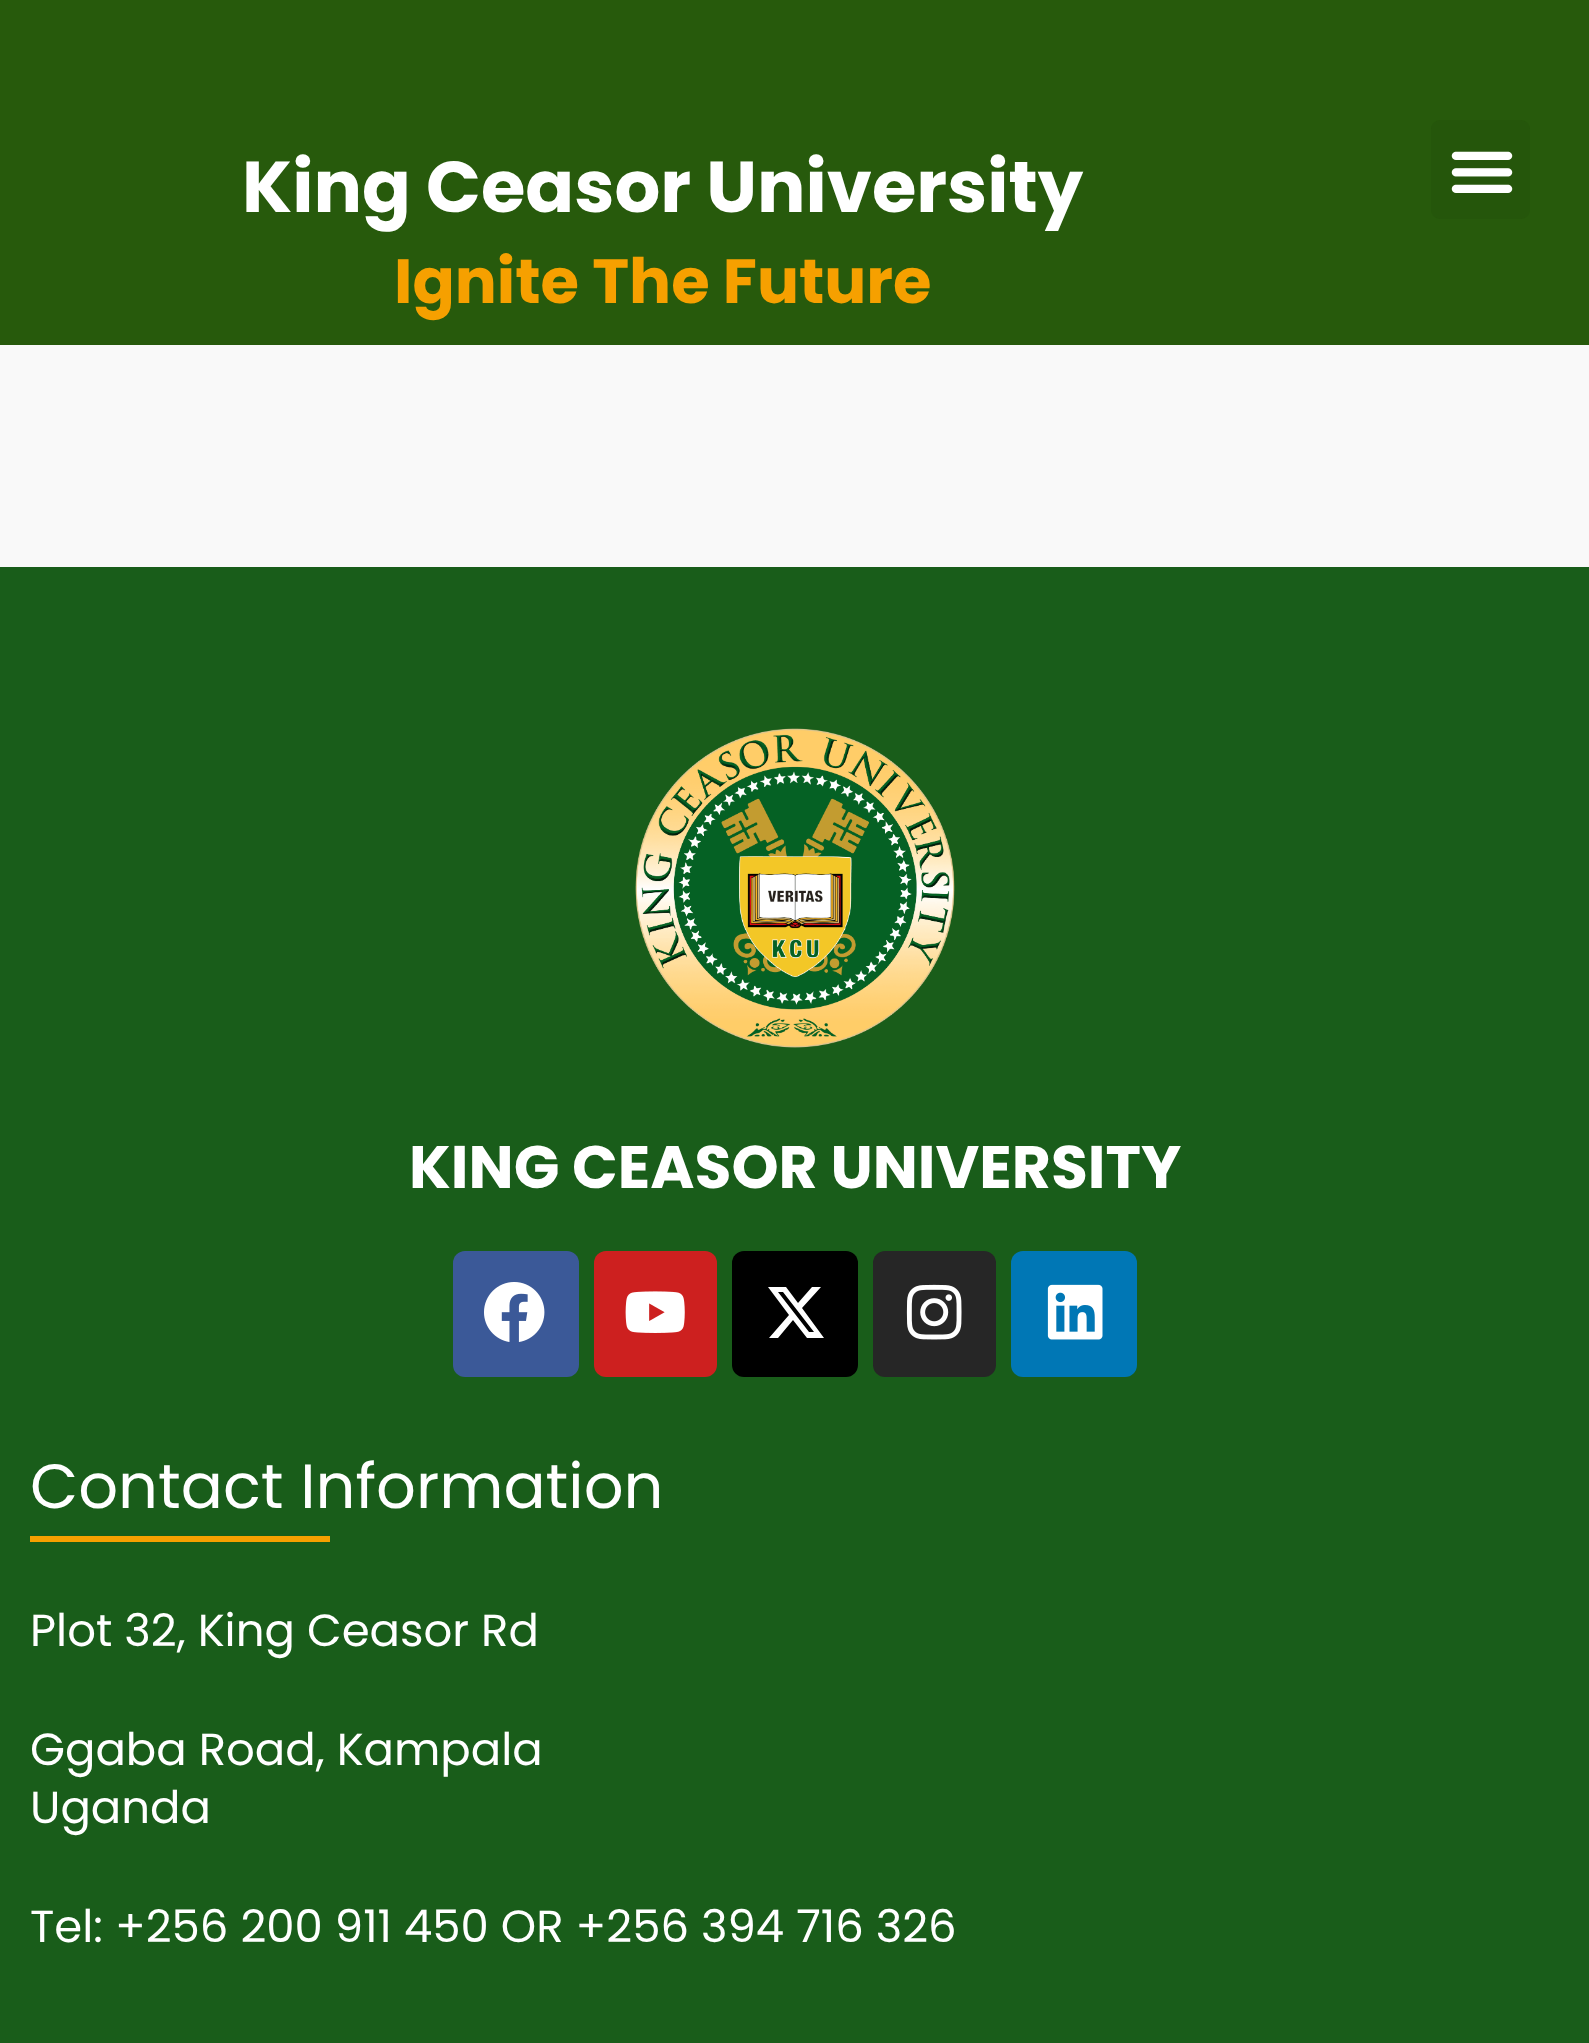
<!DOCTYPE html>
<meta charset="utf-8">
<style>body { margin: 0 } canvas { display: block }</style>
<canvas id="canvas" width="1589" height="2043"></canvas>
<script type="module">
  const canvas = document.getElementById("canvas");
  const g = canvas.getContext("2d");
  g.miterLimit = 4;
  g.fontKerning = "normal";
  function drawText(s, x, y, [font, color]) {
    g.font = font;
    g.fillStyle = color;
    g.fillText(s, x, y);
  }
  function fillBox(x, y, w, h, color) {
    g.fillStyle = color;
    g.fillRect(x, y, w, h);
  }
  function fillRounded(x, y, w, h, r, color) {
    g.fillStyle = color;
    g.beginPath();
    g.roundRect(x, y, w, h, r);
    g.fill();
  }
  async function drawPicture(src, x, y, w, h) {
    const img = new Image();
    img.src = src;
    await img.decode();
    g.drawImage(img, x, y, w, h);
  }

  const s1 = ["bold 72px Poppins", "#FFFFFF"];
  const s2 = ["bold 62.4px Poppins", "#F6A000"];
  const s3 = ["bold 60px Poppins", "#FFFFFF"];
  const s4 = ["62.4px Poppins", "#FFFFFF"];
  const s5 = ["45px Poppins", "#FFFFFF"];

  fillBox(0, 0, 1589, 2043, "#F9F9F9");
  fillBox(0, 0, 1589, 345, "#275A0C");
  drawText("King Ceasor University", 242, 212, s1);
  drawText("Ignite The Future", 394, 303, s2);
  fillRounded(1431, 120, 99, 99, 9, "#25560B");
  await drawPicture("pic1.png", 1451, 151, 62, 42);
  fillBox(0, 567, 1589, 1476, "#195D1A");
  await drawPicture("pic2.png", 635, 728, 320, 320);
  drawText("KING CEASOR UNIVERSITY", 409, 1188, s3);
  fillRounded(453, 1251, 126, 126, 12, "#3B5998");
  await drawPicture("pic3.png", 484, 1282, 61, 60);
  fillRounded(594, 1251, 123, 126, 12, "#CD201F");
  await drawPicture("pic4.png", 625, 1291, 60, 42);
  fillRounded(732, 1251, 126, 126, 12, "#000000");
  g.fillStyle = "#FFFFFF";
  g.beginPath();
  g.moveTo(812, 1287);
  g.lineTo(821, 1287);
  g.lineTo(802, 1308);
  g.lineTo(824, 1338);
  g.lineTo(807, 1338);
  g.lineTo(793, 1320);
  g.lineTo(778, 1338);
  g.lineTo(769, 1338);
  g.lineTo(789, 1315);
  g.lineTo(768, 1287);
  g.lineTo(786, 1287);
  g.lineTo(798, 1303);
  g.closePath();
  g.moveTo(809, 1332);
  g.lineTo(814, 1332);
  g.lineTo(783, 1292);
  g.lineTo(778, 1292);
  g.closePath();
  g.fill();
  fillRounded(873, 1251, 123, 126, 12, "#262626");
  await drawPicture("pic5.png", 906, 1284, 56, 56);
  fillRounded(1011, 1251, 126, 126, 12, "#0077B5");
  await drawPicture("pic6.png", 1047, 1284, 56, 56);
  drawText("Contact Information", 30, 1508, s4);
  fillBox(30, 1536, 300, 6, "#F6A000");
  drawText("Plot 32, King Ceasor Rd", 30, 1646, s5);
  drawText("Ggaba Road, Kampala", 30, 1765, s5);
  drawText("Uganda", 30, 1823, s5);
  drawText("Tel: +256 200 911 450 OR +256 394 716 326", 30, 1942, s5);
</script>
